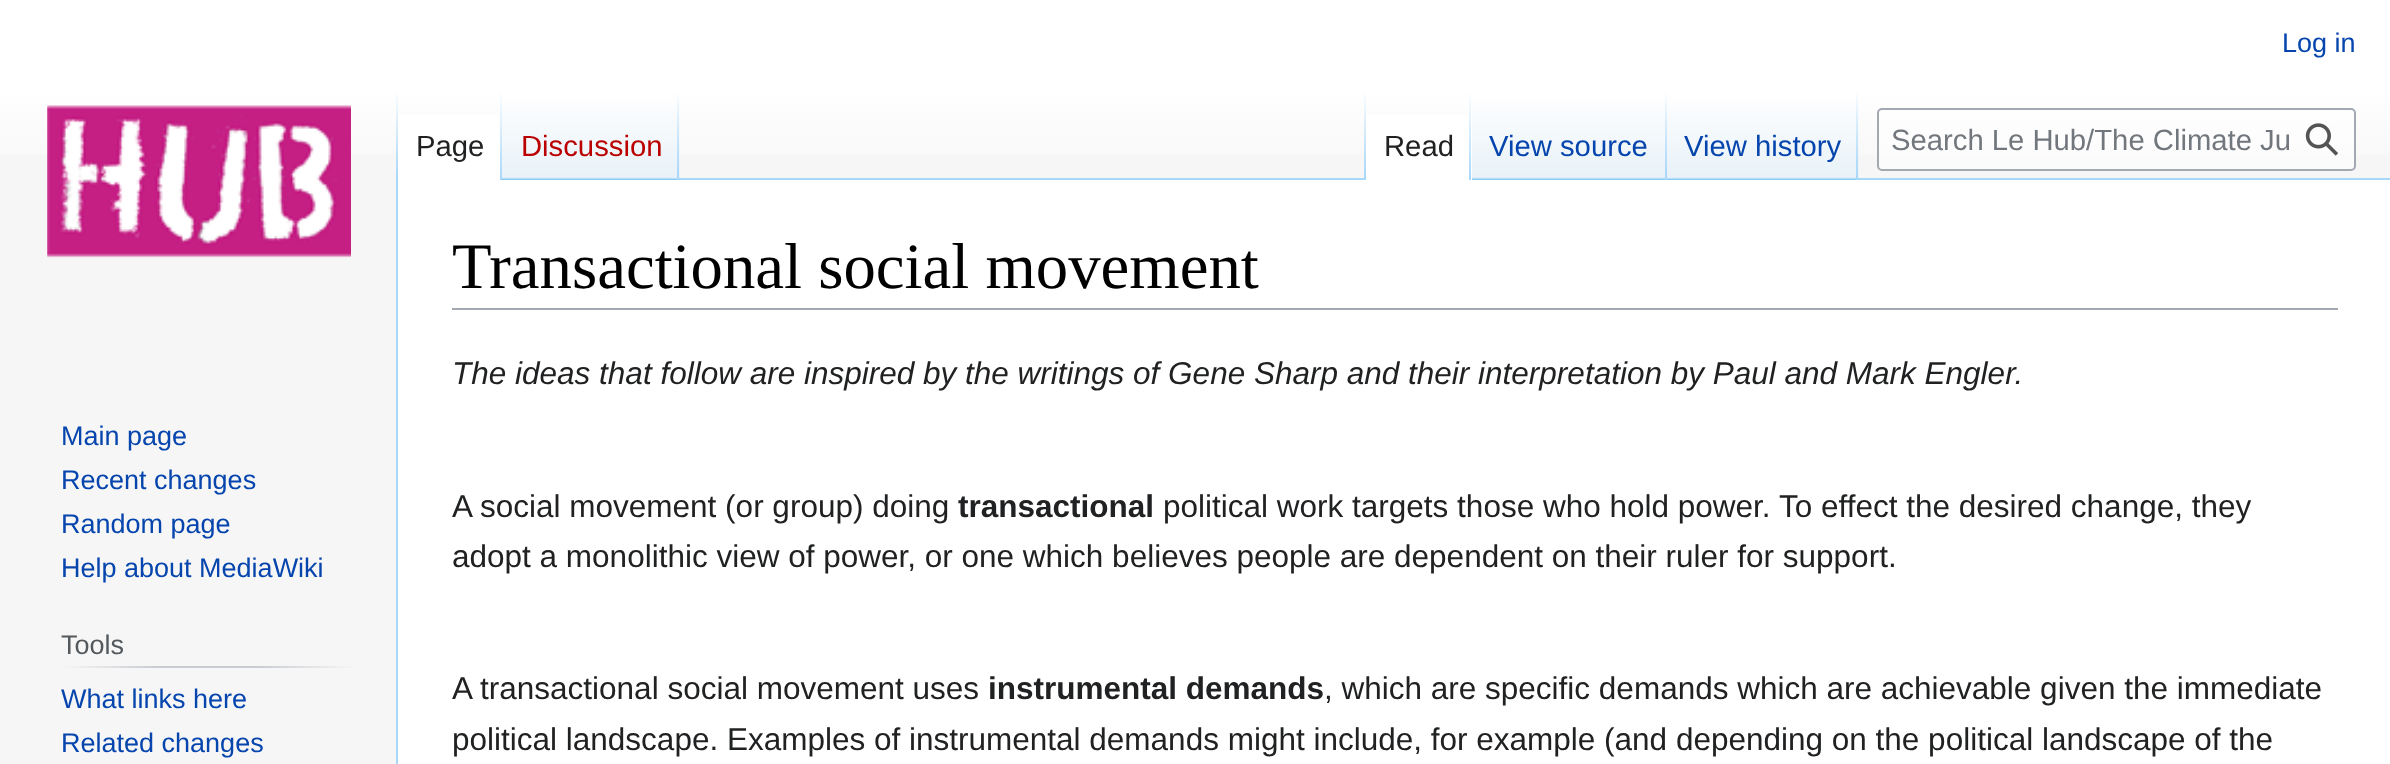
<!DOCTYPE html>
<meta charset="utf-8">
<style>body { margin: 0 } canvas { display: block }</style>
<canvas id="canvas" width="2390" height="764"></canvas>
<script type="module">
  const canvas = document.getElementById("canvas");
  const g = canvas.getContext("2d");
  g.miterLimit = 4;
  g.fontKerning = "normal";
  function drawText(s, x, y, [font, color]) {
    g.font = font;
    g.fillStyle = color;
    g.fillText(s, x, y);
  }
  function fillBox(x, y, w, h, color) {
    g.fillStyle = color;
    g.fillRect(x, y, w, h);
  }
  async function drawPicture(src, x, y, w, h) {
    const img = new Image();
    img.src = src;
    await img.decode();
    g.drawImage(img, x, y, w, h);
  }
  let gradient;

  const s1 = ["27px Liberation Sans", "#0645AD"];
  const s2 = ["29.25px Liberation Sans", "#202122"];
  const s3 = ["29.25px Liberation Sans", "#BA0000"];
  const s4 = ["29.25px Liberation Sans", "#0645AD"];
  const s5 = ["29.25px Liberation Sans", "#72777D"];
  const s6 = ["27px Liberation Sans", "#54595D"];
  const s7 = ["64.75px Liberation Serif", "#000000"];
  const s8 = ["italic 31.5px Liberation Sans", "#202122"];
  const s9 = ["31.5px Liberation Sans", "#202122"];
  const s10 = ["bold 31.5px Liberation Sans", "#202122"];

  fillBox(0, 0, 2390, 764, "#F6F6F6");
  gradient = g.createLinearGradient(1196, 0, 1196, 180);
  gradient.addColorStop(0.5, "#FFFFFF");
  gradient.addColorStop(1, "#F6F6F6");
  g.fillStyle = gradient;
  g.fillRect(0, 0, 2390, 155);
  drawText("Log in", 2282, 52, s1);
  fillBox(396, 178, 2, 586, "#A7D7F9");
  gradient = g.createLinearGradient(397, 90, 397, 180);
  gradient.addColorStop(0, "rgba(167, 215, 249, 0)");
  gradient.addColorStop(1, "#A7D7F9");
  g.fillStyle = gradient;
  g.fillRect(396, 90, 2, 90);
  fillBox(398, 115, 102, 65, "#FFFFFF");
  gradient = g.createLinearGradient(501, 90, 501, 180);
  gradient.addColorStop(0, "#FFFFFF");
  gradient.addColorStop(1, "#A7D7F9");
  g.fillStyle = gradient;
  g.fillRect(500, 90, 2, 90);
  drawText("Page", 416, 156, s2);
  gradient = g.createLinearGradient(591, 180, 591, 90);
  gradient.addColorStop(0, "#77C1F6");
  gradient.addColorStop(0.03, "#E8F2F8");
  gradient.addColorStop(1, "#FFFFFF");
  g.fillStyle = gradient;
  g.fillRect(502, 103, 178, 77);
  gradient = g.createLinearGradient(678, 90, 678, 180);
  gradient.addColorStop(0, "rgba(167, 215, 249, 0)");
  gradient.addColorStop(1, "#A7D7F9");
  g.fillStyle = gradient;
  g.fillRect(677, 90, 2, 90);
  drawText("Discussion", 521, 156, s3);
  fillBox(680, 178, 1710, 2, "#A7D7F9");
  gradient = g.createLinearGradient(1365, 90, 1365, 180);
  gradient.addColorStop(0, "rgba(167, 215, 249, 0)");
  gradient.addColorStop(1, "#A7D7F9");
  g.fillStyle = gradient;
  g.fillRect(1364, 90, 2, 90);
  fillBox(1366, 115, 106, 65, "#FFFFFF");
  gradient = g.createLinearGradient(1470, 90, 1470, 180);
  gradient.addColorStop(0, "#FFFFFF");
  gradient.addColorStop(1, "#A7D7F9");
  g.fillStyle = gradient;
  g.fillRect(1469, 90, 2, 90);
  drawText("Read", 1384, 156, s2);
  gradient = g.createLinearGradient(1569, 180, 1569, 90);
  gradient.addColorStop(0, "#77C1F6");
  gradient.addColorStop(0.03, "#E8F2F8");
  gradient.addColorStop(1, "#FFFFFF");
  g.fillStyle = gradient;
  g.fillRect(1472, 103, 195, 77);
  gradient = g.createLinearGradient(1666, 90, 1666, 180);
  gradient.addColorStop(0, "rgba(167, 215, 249, 0)");
  gradient.addColorStop(1, "#A7D7F9");
  g.fillStyle = gradient;
  g.fillRect(1665, 90, 2, 90);
  drawText("View source", 1489, 156, s4);
  gradient = g.createLinearGradient(1763, 180, 1763, 90);
  gradient.addColorStop(0, "#77C1F6");
  gradient.addColorStop(0.03, "#E8F2F8");
  gradient.addColorStop(1, "#FFFFFF");
  g.fillStyle = gradient;
  g.fillRect(1667, 103, 192, 77);
  gradient = g.createLinearGradient(1857, 90, 1857, 180);
  gradient.addColorStop(0, "rgba(167, 215, 249, 0)");
  gradient.addColorStop(1, "#A7D7F9");
  g.fillStyle = gradient;
  g.fillRect(1856, 90, 2, 90);
  drawText("View history", 1684, 156, s4);
  g.fillStyle = "rgba(255, 255, 255, 0.5)";
  g.beginPath();
  g.roundRect(1878, 109, 477, 61, 4);
  g.fill();
  g.strokeStyle = "#A2A9B1";
  g.lineWidth = 2;
  g.stroke();
  drawText("Search Le Hub/The Climate Ju", 1891, 150, s5);
  await drawPicture("pic1.png", 2305, 123, 34, 33);
  await drawPicture("pic2.png", 47, 105, 304, 153);
  drawText("Main page", 61, 445, s1);
  drawText("Recent changes", 61, 489, s1);
  drawText("Random page", 61, 533, s1);
  drawText("Help about MediaWiki", 61, 577, s1);
  gradient = g.createLinearGradient(61, 667, 356, 667);
  gradient.addColorStop(0, "#F6F6F6");
  gradient.addColorStop(0.33, "#C8CCD1");
  gradient.addColorStop(0.66, "#C8CCD1");
  gradient.addColorStop(1, "#F6F6F6");
  g.fillStyle = gradient;
  g.fillRect(61, 666, 295, 2);
  drawText("Tools", 61, 654, s6);
  drawText("What links here", 61, 708, s1);
  drawText("Related changes", 61, 752, s1);
  fillBox(398, 180, 1992, 584, "#FFFFFF");
  fillBox(452, 308, 1886, 2, "#A2A9B1");
  drawText("Transactional social movement", 452, 288, s7);
  drawText("The ideas that follow are inspired by the writings of Gene Sharp and their interpretation by Paul and Mark Engler.", 452, 384, s8);
  drawText("A social movement (or group) doing", 452, 517, s9);
  drawText("transactional", 958, 517, s10);
  drawText("political work targets those who hold power.", 1163, 517, s9);
  drawText("To effect the desired change, they", 1779, 517, s9);
  drawText("adopt a monolithic view of power, or one which believes people are dependent on their ruler for support.", 452, 567, s9);
  drawText("A transactional social movement uses", 452, 699, s9);
  drawText("instrumental demands", 988, 699, s10);
  drawText(", which are specific demands which are achievable given the immediate", 1324, 699, s9);
  drawText("political landscape. Examples of instrumental demands might include, for example (and depending on the political landscape of the", 452, 750, s9);
</script>
